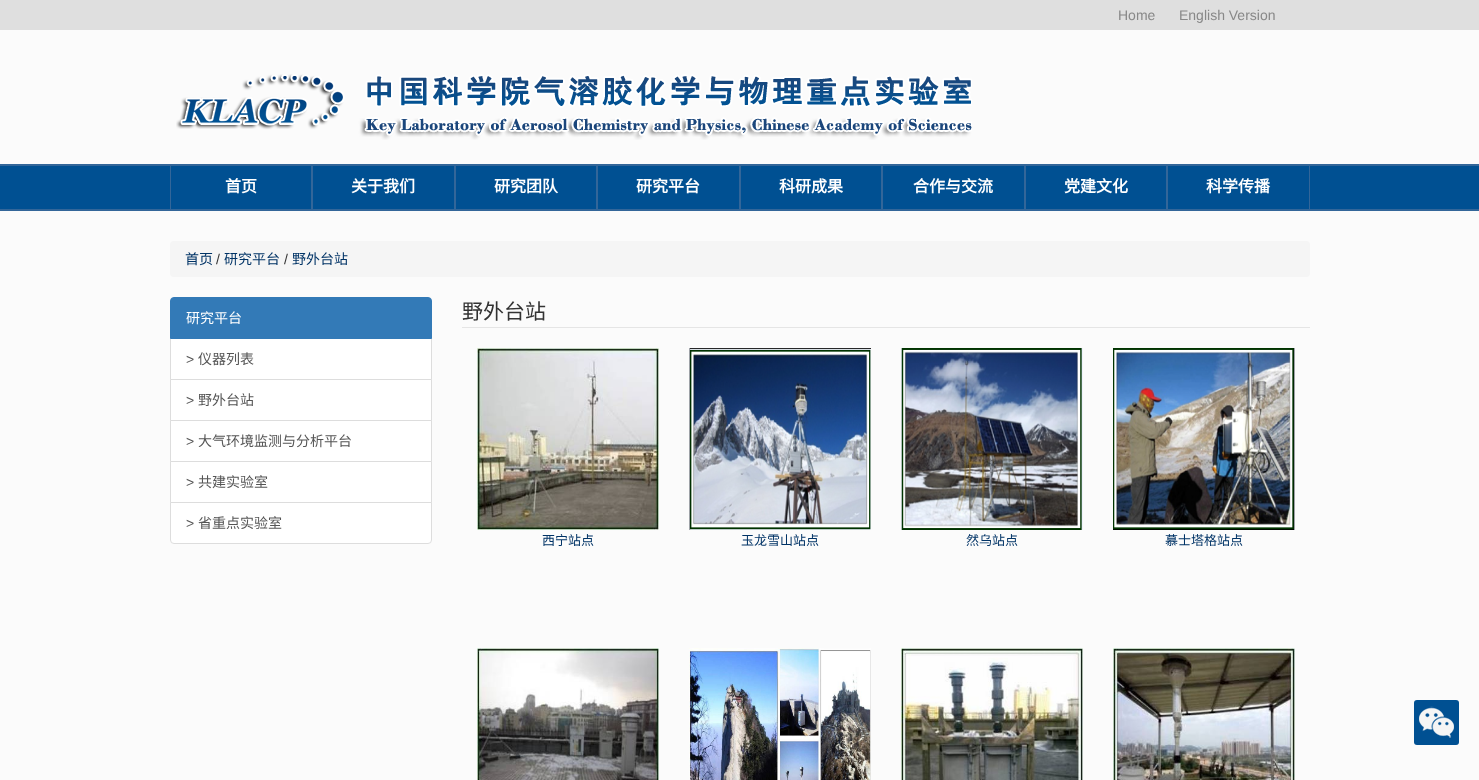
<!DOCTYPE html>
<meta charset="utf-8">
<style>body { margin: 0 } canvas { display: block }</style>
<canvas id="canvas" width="1479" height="780"></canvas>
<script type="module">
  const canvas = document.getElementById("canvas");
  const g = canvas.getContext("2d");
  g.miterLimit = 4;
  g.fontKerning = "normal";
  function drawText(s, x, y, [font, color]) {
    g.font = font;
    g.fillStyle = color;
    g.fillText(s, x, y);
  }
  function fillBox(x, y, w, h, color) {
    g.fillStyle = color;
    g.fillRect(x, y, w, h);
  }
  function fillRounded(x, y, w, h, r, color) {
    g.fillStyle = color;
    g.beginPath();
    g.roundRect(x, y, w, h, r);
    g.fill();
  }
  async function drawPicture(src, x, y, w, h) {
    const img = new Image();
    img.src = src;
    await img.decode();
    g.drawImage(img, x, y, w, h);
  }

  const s1 = ["14px Liberation Sans", "#888888"];
  const s2 = ["bold 16px Noto Sans CJK SC", "#FFFFFF"];
  const s3 = ["14px Noto Sans CJK SC", "#003366"];
  const s4 = ["14px Liberation Sans", "#333333"];
  const s5 = ["14px Noto Sans CJK SC", "#FFFFFF"];
  const s6 = ["14px Liberation Sans", "#555555"];
  const s7 = ["14px Noto Sans CJK SC", "#555555"];
  const s8 = ["21px Noto Sans CJK SC", "#333333"];
  const s9 = ["13px Noto Sans CJK SC", "#003366"];

  fillBox(0, 0, 1479, 780, "#FBFBFB");
  fillBox(0, 0, 1479, 30, "#DFDFDF");
  drawText("Home", 1118, 20, s1);
  drawText("English Version", 1179, 20, s1);
  await drawPicture("pic1.png", 176, 74, 796, 66);
  fillBox(0, 166, 1479, 43, "#005092");
  fillBox(0, 164, 1479, 2, "#336699");
  fillBox(0, 209, 1479, 2, "#336699");
  fillBox(311, 166, 2, 43, "#336699");
  fillBox(170, 166, 1, 43, "#336699");
  drawText("首页", 225, 192, s2);
  fillBox(454, 166, 2, 43, "#336699");
  drawText("关于我们", 351, 192, s2);
  fillBox(596, 166, 2, 43, "#336699");
  drawText("研究团队", 494, 192, s2);
  fillBox(739, 166, 2, 43, "#336699");
  drawText("研究平台", 636, 192, s2);
  fillBox(881, 166, 2, 43, "#336699");
  drawText("科研成果", 779, 192, s2);
  drawText("合作与交流", 913, 192, s2);
  fillBox(1166, 166, 2, 43, "#336699");
  fillBox(1024, 166, 2, 43, "#336699");
  drawText("党建文化", 1064, 192, s2);
  fillBox(1309, 166, 1, 43, "#336699");
  drawText("科学传播", 1206, 192, s2);
  fillRounded(170, 241, 1140, 36, 4, "#F5F5F5");
  drawText("首页", 185, 264, s3);
  drawText("/", 216, 264, s4);
  drawText("研究平台", 224, 264, s3);
  drawText("/", 284, 264, s4);
  drawText("野外台站", 292, 264, s3);
  g.fillStyle = "#FFFFFF";
  g.beginPath();
  g.rect(170.5, 338.5, 261, 41);
  g.fill();
  g.strokeStyle = "#DDDDDD";
  g.stroke();
  g.fillStyle = "#337AB7";
  g.beginPath();
  g.roundRect(170.5, 297.5, 261, 41, [3.5, 3.5, 0, 0]);
  g.fill();
  g.strokeStyle = "#337AB7";
  g.stroke();
  drawText("研究平台", 186, 323, s5);
  drawText(">", 186, 364, s6);
  drawText("仪器列表", 198, 364, s7);
  g.fillStyle = "#FFFFFF";
  g.beginPath();
  g.rect(170.5, 379.5, 261, 41);
  g.fill();
  g.strokeStyle = "#DDDDDD";
  g.stroke();
  drawText(">", 186, 405, s6);
  drawText("野外台站", 198, 405, s7);
  g.fillStyle = "#FFFFFF";
  g.beginPath();
  g.rect(170.5, 420.5, 261, 41);
  g.fill();
  g.stroke();
  drawText(">", 186, 446, s6);
  drawText("大气环境监测与分析平台", 198, 446, s7);
  g.fillStyle = "#FFFFFF";
  g.beginPath();
  g.rect(170.5, 461.5, 261, 41);
  g.fill();
  g.stroke();
  drawText(">", 186, 487, s6);
  drawText("共建实验室", 198, 487, s7);
  g.fillStyle = "#FFFFFF";
  g.beginPath();
  g.roundRect(170.5, 502.5, 261, 41, [0, 0, 3.5, 3.5]);
  g.fill();
  g.stroke();
  drawText(">", 186, 528, s6);
  drawText("省重点实验室", 198, 528, s7);
  fillBox(462, 327, 848, 1, "#E5E5E5");
  drawText("野外台站", 462, 319, s8);
  await drawPicture("pic2.png", 477, 348, 182, 182);
  drawText("西宁站点", 542, 545, s9);
  await drawPicture("pic3.png", 689, 348, 182, 182);
  drawText("玉龙雪山站点", 741, 545, s9);
  await drawPicture("pic4.png", 901, 348, 182, 182);
  drawText("然乌站点", 966, 545, s9);
  await drawPicture("pic5.png", 1113, 348, 182, 182);
  drawText("慕士塔格站点", 1165, 545, s9);
  await drawPicture("pic6.png", 477, 648, 182, 132);
  await drawPicture("pic7.png", 689, 648, 182, 132);
  await drawPicture("pic8.png", 901, 648, 182, 132);
  await drawPicture("pic9.png", 1113, 648, 182, 132);
  fillRounded(1414, 700, 45, 45, 3, "#005092");
  await drawPicture("pic10.png", 1419, 706, 35, 32);
</script>
